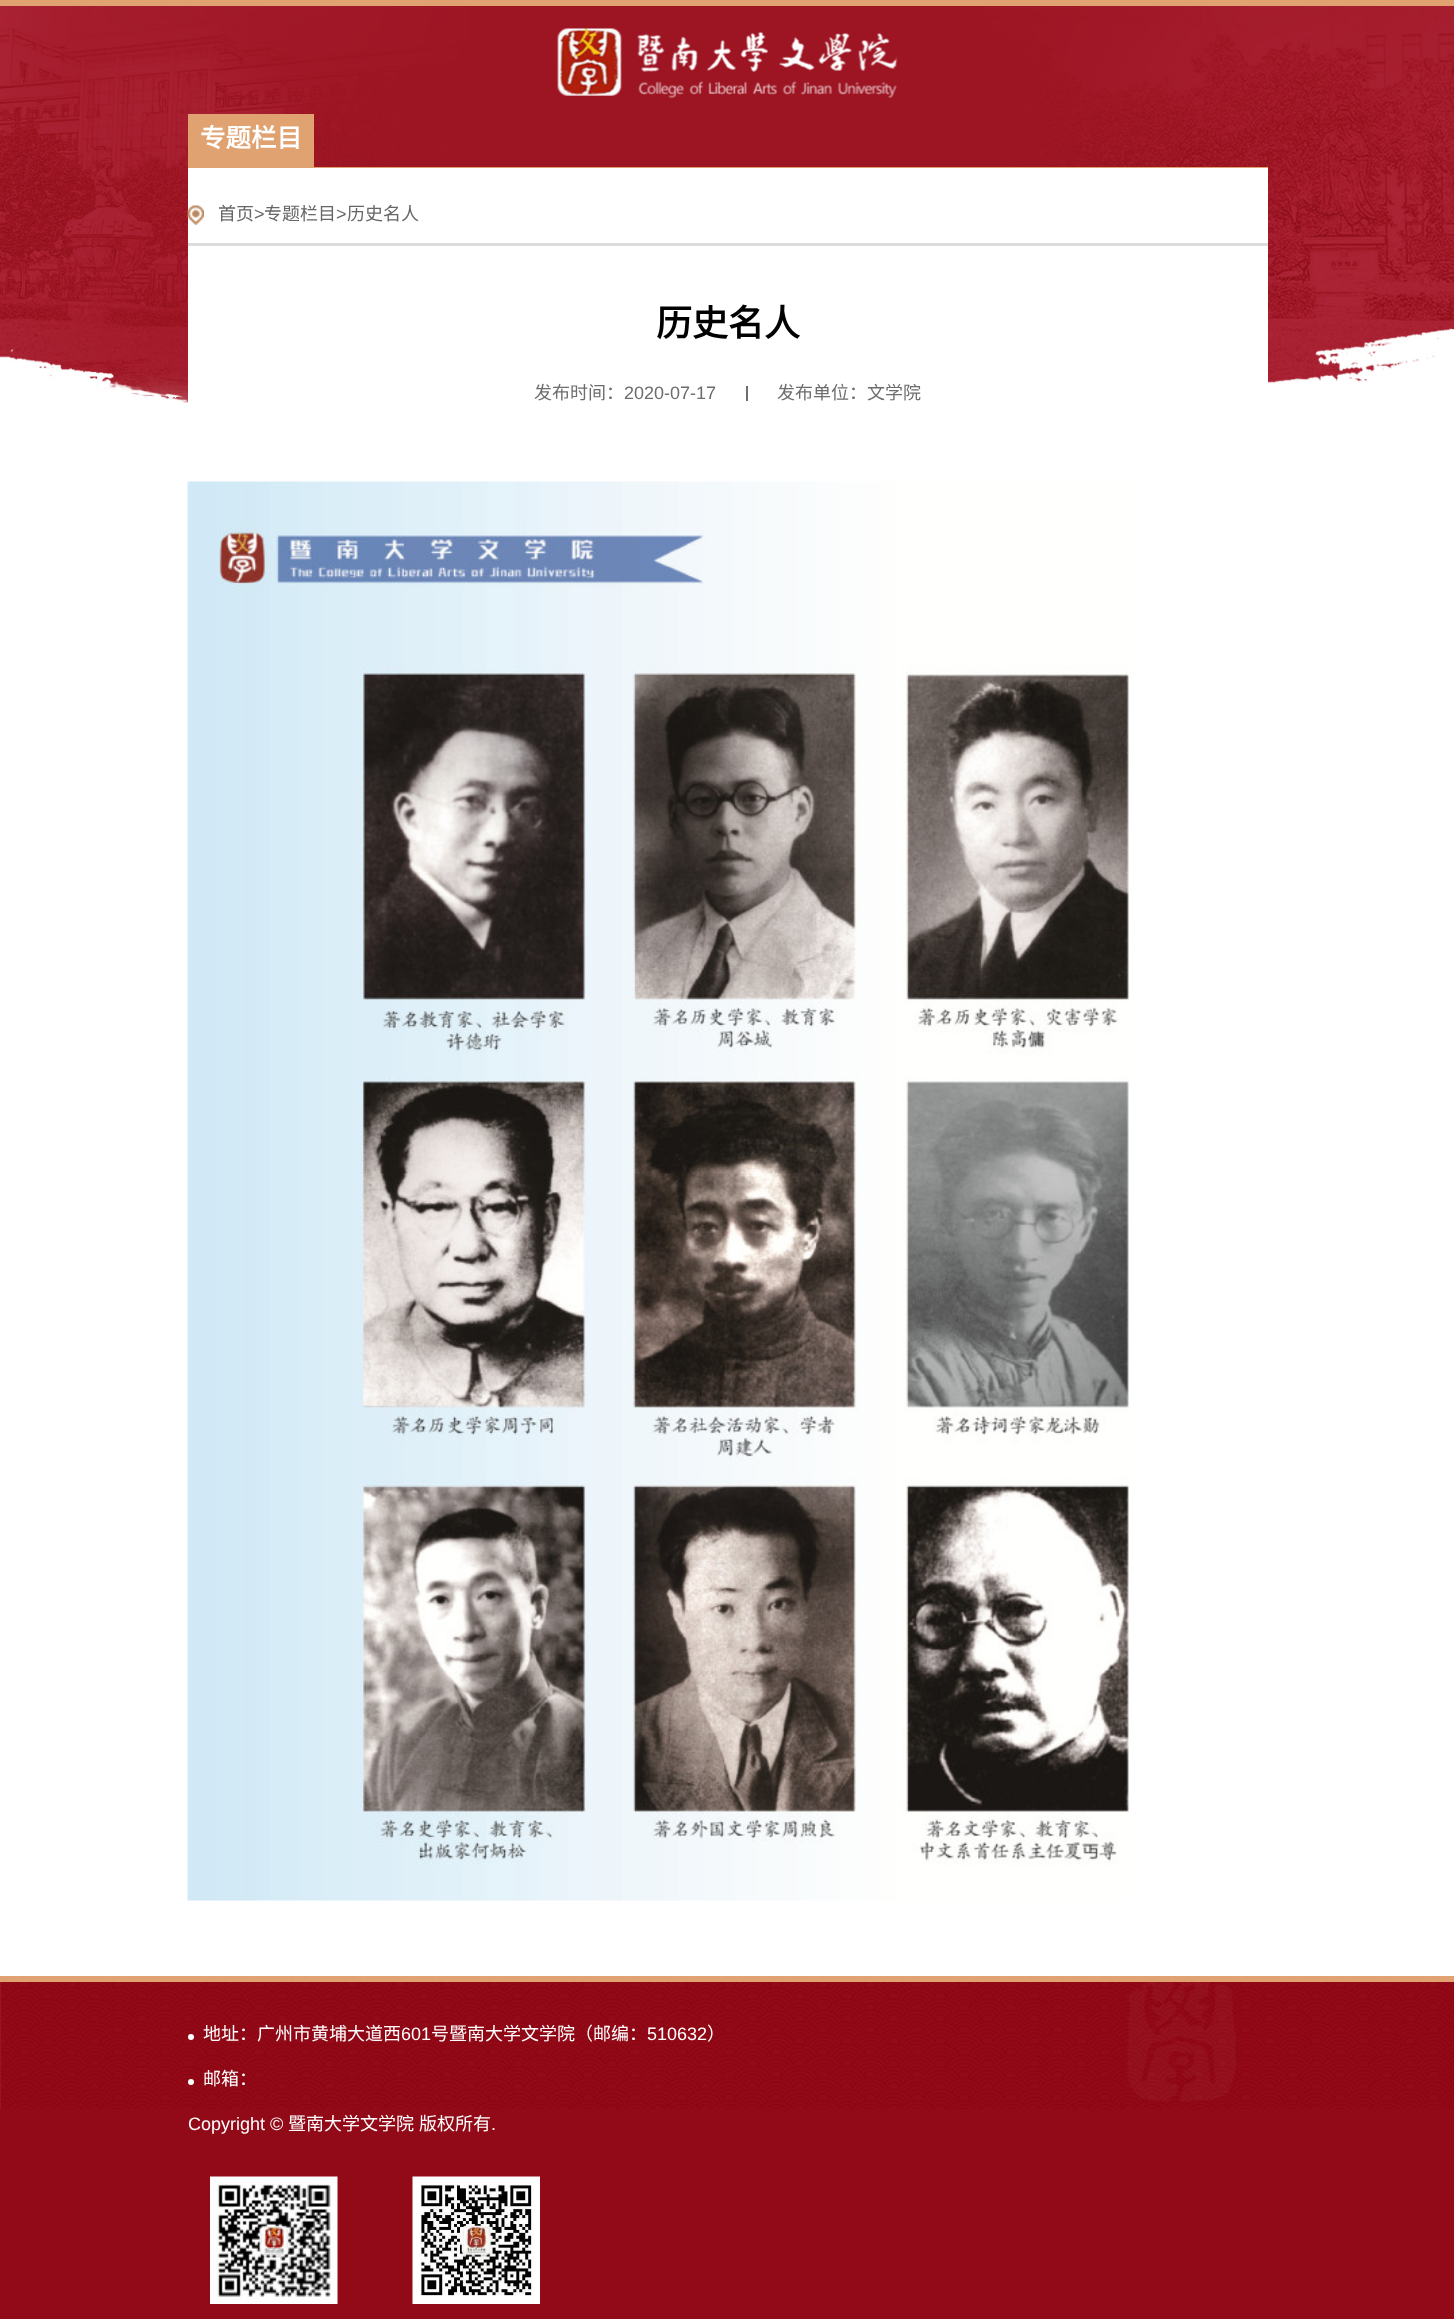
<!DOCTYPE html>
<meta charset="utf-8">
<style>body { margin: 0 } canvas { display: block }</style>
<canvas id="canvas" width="1454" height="2319"></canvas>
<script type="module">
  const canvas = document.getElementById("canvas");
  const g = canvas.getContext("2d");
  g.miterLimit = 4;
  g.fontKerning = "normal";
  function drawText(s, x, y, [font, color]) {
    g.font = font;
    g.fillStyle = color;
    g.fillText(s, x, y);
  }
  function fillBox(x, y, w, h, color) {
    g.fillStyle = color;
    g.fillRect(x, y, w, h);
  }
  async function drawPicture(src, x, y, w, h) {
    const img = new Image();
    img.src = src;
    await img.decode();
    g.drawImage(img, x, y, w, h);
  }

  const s1 = ["bold 25.5px Noto Sans CJK SC", "#FFFFFF"];
  const s2 = ["18px Noto Sans CJK SC", "#666666"];
  const s3 = ["18px Liberation Sans", "#666666"];
  const s4 = ["bold 36px Noto Sans CJK SC", "#000000"];
  const s5 = ["18px Noto Sans CJK SC", "#6D6D6D"];
  const s6 = ["18px Liberation Sans", "#6D6D6D"];
  const s7 = ["18px Noto Sans CJK SC", "#FFFFFF"];
  const s8 = ["18px Liberation Sans", "#FFFFFF"];

  fillBox(0, 0, 1454, 2319, "#FFFFFF");
  await drawPicture("pic1.png", 0, 6, 1454, 435);
  fillBox(0, 0, 1454, 6, "#E0A271");
  await drawPicture("pic2.png", 557, 28, 341, 70);
  fillBox(188, 167, 1080, 1, "#E0A271");
  fillBox(188, 114, 126, 53, "#E0A271");
  drawText("专题栏目", 200, 147, s1);
  fillBox(188, 168, 1080, 273, "#FFFFFF");
  await drawPicture("pic3.png", 187, 205, 17, 20);
  fillBox(188, 243, 1080, 3, "#DCDCDC");
  drawText("首页", 218, 220, s2);
  drawText(">", 254, 220, s3);
  drawText("专题栏目", 264, 220, s2);
  drawText(">", 336, 220, s3);
  drawText("历史名人", 347, 220, s2);
  drawText("历史名人", 656, 336, s4);
  drawText("发布时间：", 534, 399, s5);
  drawText("2020-07-17", 624, 399, s6);
  fillBox(746, 386, 2, 15, "#6D6D6D");
  drawText("发布单位：文学院", 777, 399, s5);
  await drawPicture("pic4.png", 187, 481, 942, 1420);
  fillBox(0, 2109, 1454, 210, "#920A18");
  await drawPicture("pic5.png", 0, 1982, 1454, 127);
  fillBox(0, 1976, 1454, 6, "#E0A271");
  g.fillStyle = "#FFFFFF";
  g.beginPath();
  g.arc(191, 2037, 3, 0, Math.PI * 2);
  g.fill();
  drawText("地址：广州市黄埔大道西", 203, 2040, s7);
  drawText("601", 401, 2040, s8);
  drawText("号暨南大学文学院（邮编：", 431, 2040, s7);
  drawText("510632", 647, 2040, s8);
  drawText("）", 707, 2040, s7);
  g.beginPath();
  g.arc(191, 2082, 3, 0, Math.PI * 2);
  g.fill();
  drawText("邮箱：", 203, 2085, s7);
  drawText("Copyright ©", 188, 2130, s8);
  drawText("暨南大学文学院", 288, 2130, s7);
  drawText("版权所有", 419, 2130, s7);
  drawText(".", 491, 2130, s8);
  await drawPicture("pic6.png", 210, 2176, 128, 128);
  await drawPicture("pic7.png", 412, 2176, 128, 128);
</script>
